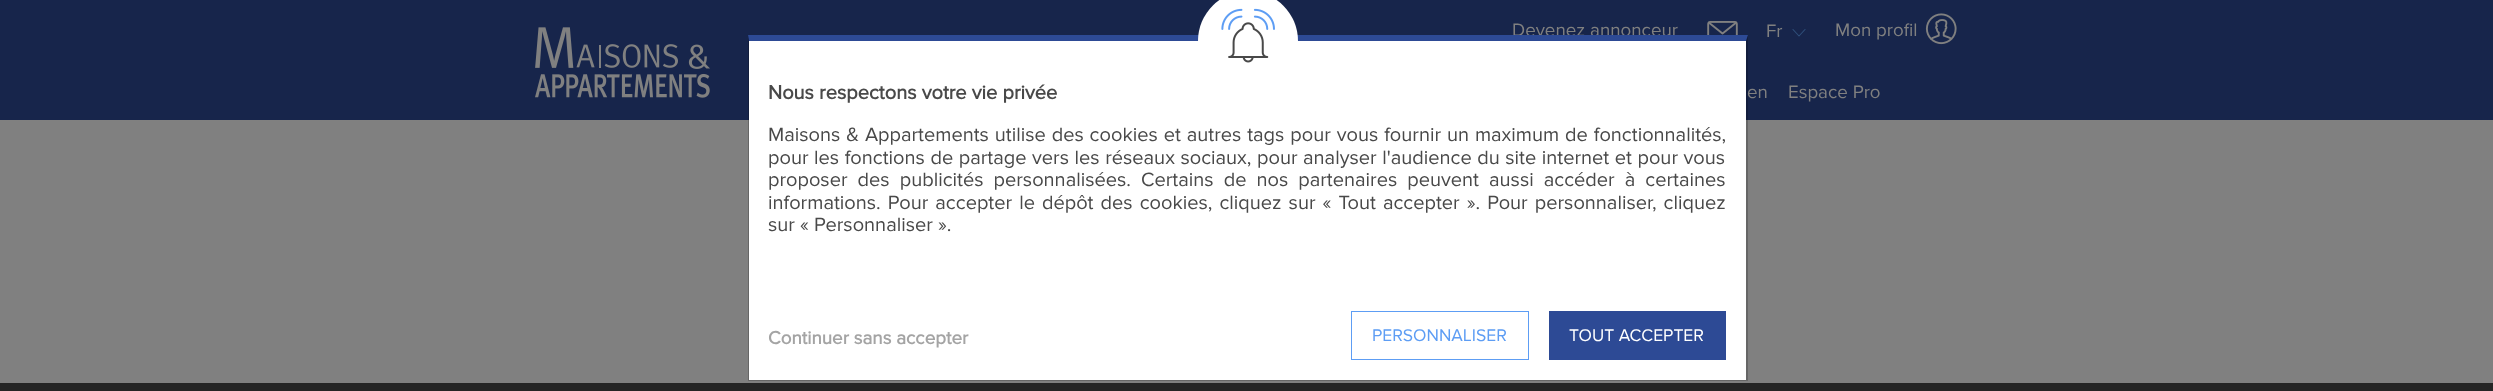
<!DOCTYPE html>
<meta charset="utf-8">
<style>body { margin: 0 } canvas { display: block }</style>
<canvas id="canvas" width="2493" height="391"></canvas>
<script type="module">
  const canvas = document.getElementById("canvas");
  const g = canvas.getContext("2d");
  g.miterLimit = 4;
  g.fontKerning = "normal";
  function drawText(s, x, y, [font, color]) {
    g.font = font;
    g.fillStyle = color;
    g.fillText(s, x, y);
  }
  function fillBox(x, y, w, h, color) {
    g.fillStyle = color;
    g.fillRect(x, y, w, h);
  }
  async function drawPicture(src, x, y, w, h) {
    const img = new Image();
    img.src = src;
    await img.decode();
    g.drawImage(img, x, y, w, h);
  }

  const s1 = ["18.75px Proxima Nova", "#808080"];
  const s2 = ["bold 20px Proxima Nova", "#494949"];
  const s3 = ["20px Proxima Nova", "#494949"];
  const s4 = ["bold 18.75px Proxima Nova", "#A4A4A4"];
  const s5 = ["17.5px Proxima Nova", "#5D9DF4"];
  const s6 = ["17.5px Proxima Nova", "#FFFFFF"];

  fillBox(0, 0, 2493, 391, "#808080");
  fillBox(0, 0, 2493, 120, "#17254B");
  await drawPicture("pic1.png", 535, 27, 175, 71);
  drawText("Devenez annonceur", 1512, 36, s1);
  await drawPicture("pic2.png", 1707, 21, 31, 14);
  drawText("Fr", 1766, 37, s1);
  g.beginPath();
  g.moveTo(1793, 29.5);
  g.lineTo(1799, 36);
  g.lineTo(1805, 29.5);
  g.strokeStyle = "#2F4F7A";
  g.lineWidth = 1.1;
  g.lineCap = "round";
  g.lineJoin = "round";
  g.stroke();
  drawText("Mon profil", 1835, 36, s1);
  await drawPicture("pic3.png", 1925, 13, 32, 32);
  drawText("en", 1747, 98, s1);
  drawText("Espace Pro", 1788, 98, s1);
  fillBox(749, 41, 997, 339, "#FFFFFF");
  g.fillStyle = "#2D4A95";
  g.beginPath();
  g.moveTo(748, 35);
  g.lineTo(1748, 35);
  g.lineTo(1746, 41);
  g.lineTo(749, 41);
  g.closePath();
  g.fill();
  g.fillStyle = "rgba(0, 0, 0, 0.2)";
  g.beginPath();
  g.moveTo(1748, 35);
  g.lineTo(1748, 381);
  g.lineTo(1746, 380);
  g.lineTo(1746, 41);
  g.closePath();
  g.fill();
  g.beginPath();
  g.moveTo(1748, 381);
  g.lineTo(748, 381);
  g.lineTo(749, 380);
  g.lineTo(1746, 380);
  g.closePath();
  g.fill();
  g.beginPath();
  g.moveTo(748, 381);
  g.lineTo(748, 35);
  g.lineTo(749, 41);
  g.lineTo(749, 380);
  g.closePath();
  g.fill();
  g.fillStyle = "#FFFFFF";
  g.beginPath();
  g.arc(1248, 41, 50, 0, Math.PI * 2);
  g.fill();
  await drawPicture("pic4.png", 1221, 8, 54, 55);
  drawText("Nous respectons votre vie privée", 768, 99, s2);
  g.wordSpacing = "0.75px";
  drawText("Maisons & Appartements utilise des cookies et autres tags pour vous fournir un maximum de fonctionnalités,", 768, 141, s3);
  g.wordSpacing = "0.4px";
  drawText("pour les fonctions de partage vers les réseaux sociaux, pour analyser l'audience du site internet et pour vous", 768, 164, s3);
  g.wordSpacing = "4.9px";
  drawText("proposer des publicités personnalisées. Certains de nos partenaires peuvent aussi accéder à certaines", 768, 186, s3);
  g.wordSpacing = "1.9px";
  drawText("informations. Pour accepter le dépôt des cookies, cliquez sur « Tout accepter ». Pour personnaliser, cliquez", 768, 209, s3);
  g.wordSpacing = "0px";
  drawText("sur « Personnaliser ».", 768, 231, s3);
  drawText("Continuer sans accepter", 768, 344, s4);
  g.strokeStyle = "#5D9DF4";
  g.lineWidth = 1;
  g.lineJoin = "miter";
  g.strokeRect(1351.5, 311.5, 177, 48);
  drawText("PERSONNALISER", 1372, 341, s5);
  fillBox(1549, 311, 177, 49, "#2D4A95");
  drawText("TOUT ACCEPTER", 1569, 341, s6);
  fillBox(0, 383, 2493, 8, "#252525");
</script>
